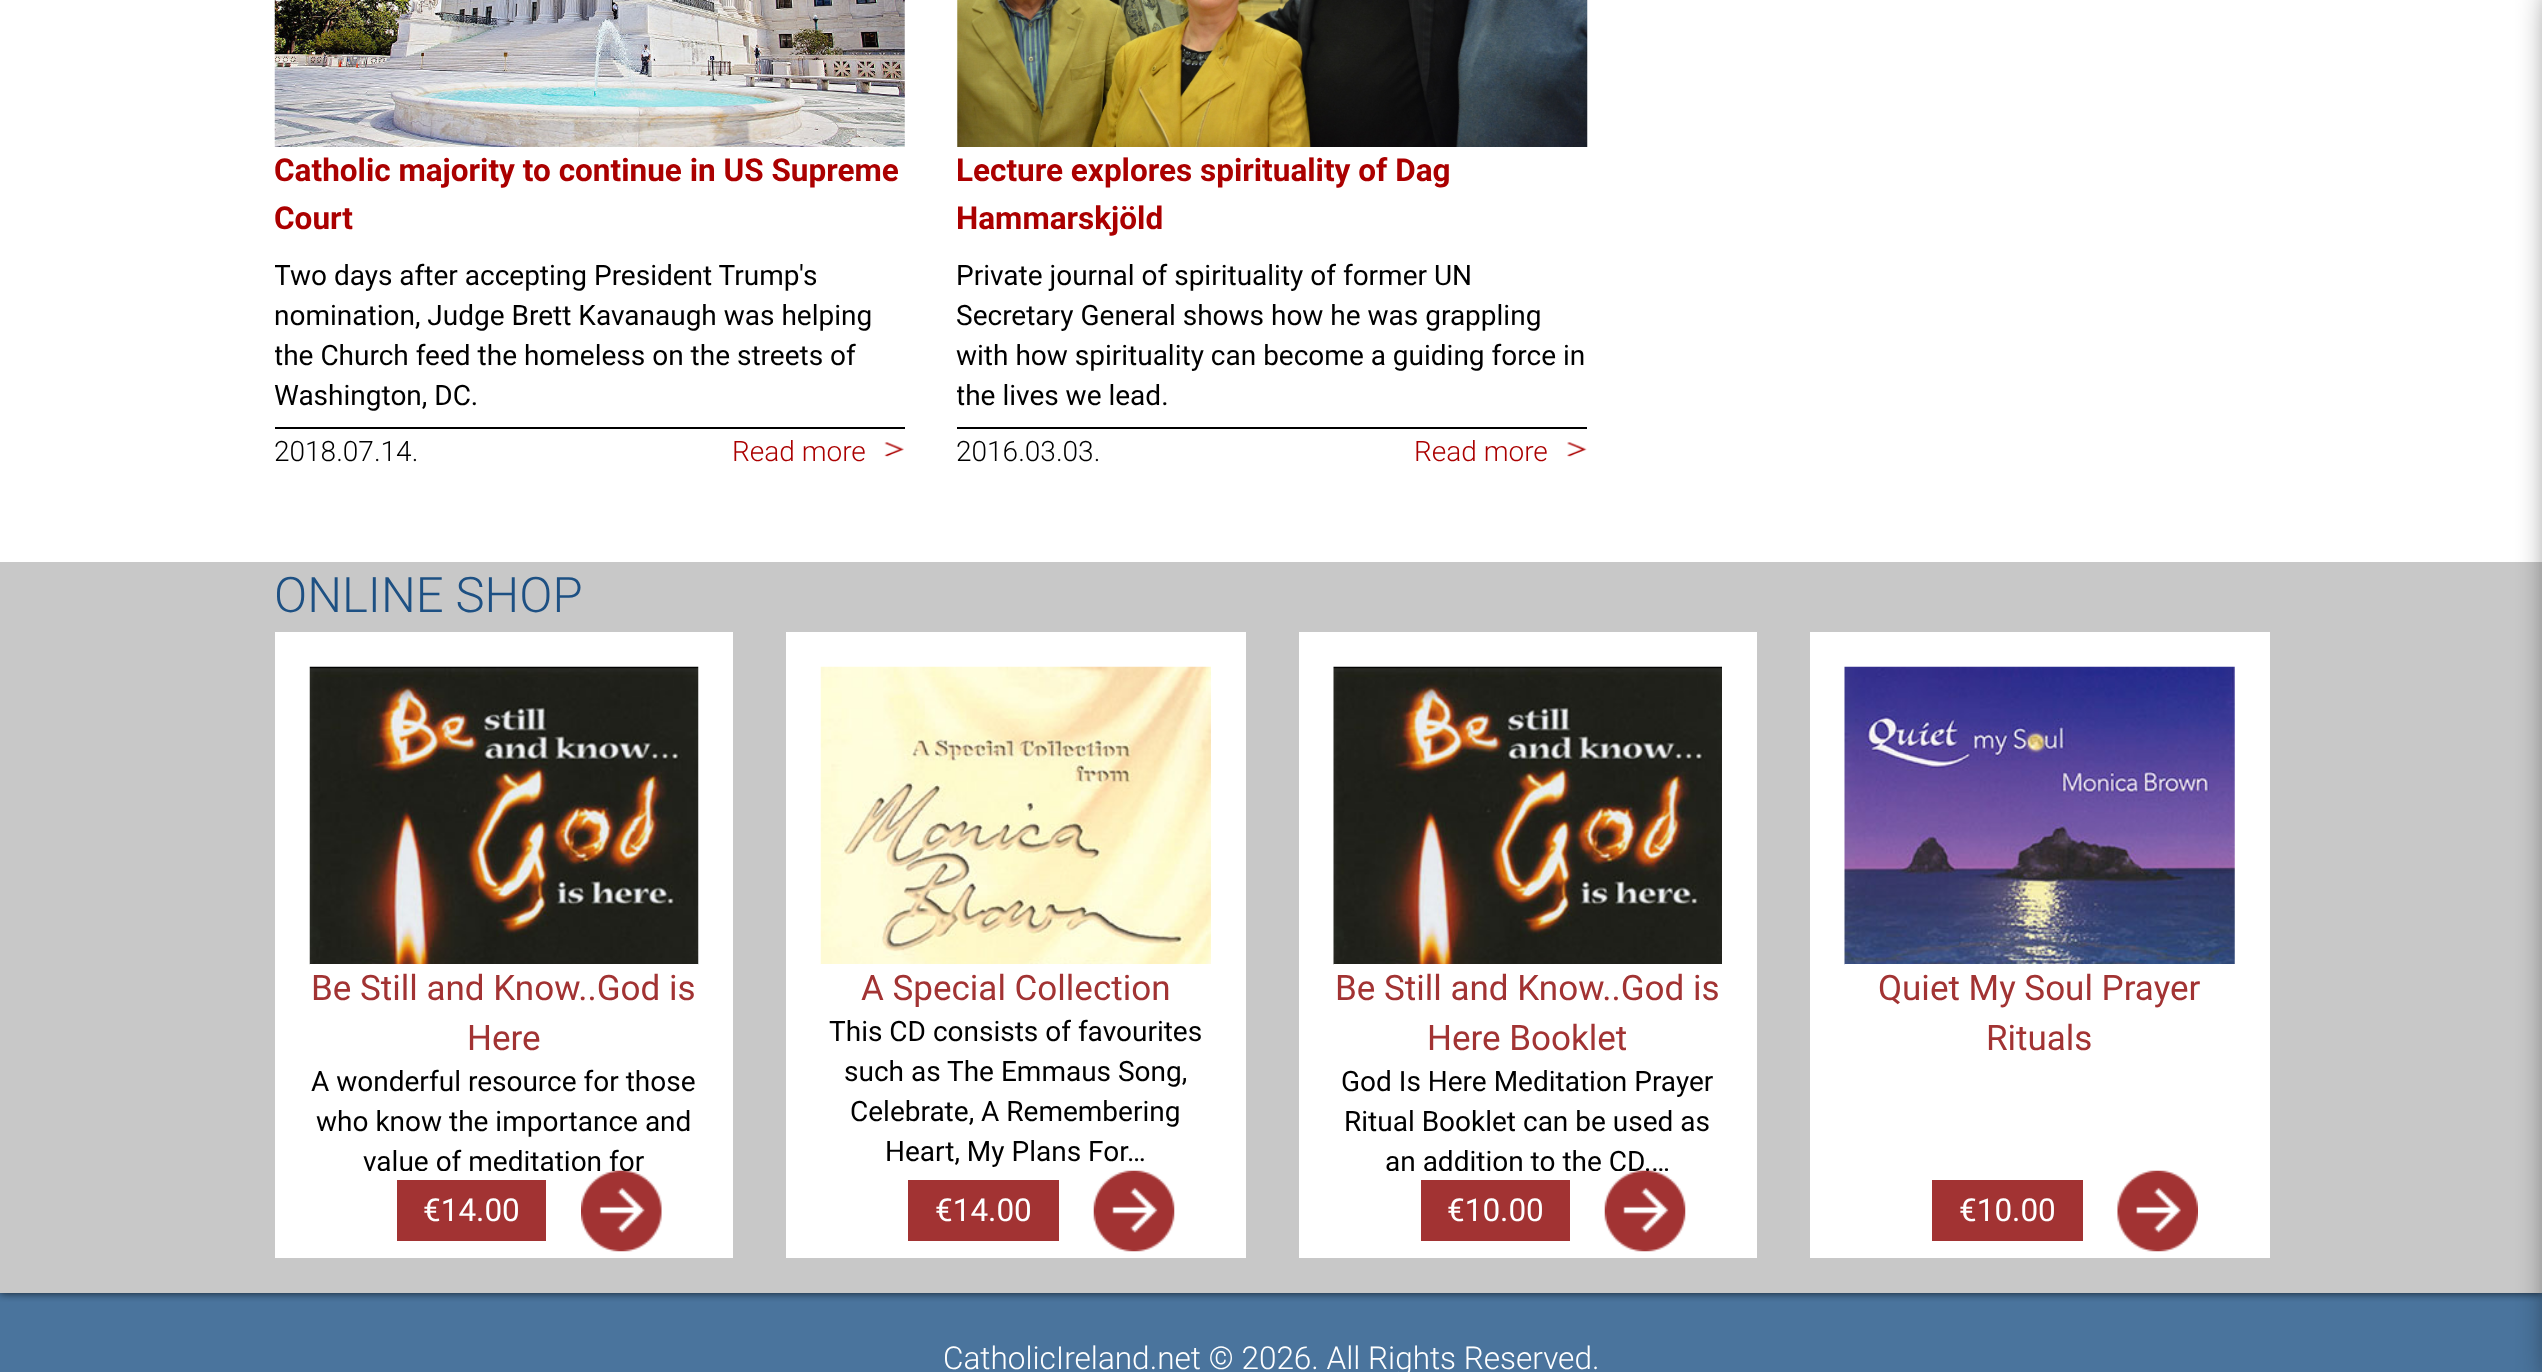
<!DOCTYPE html>
<meta charset="utf-8">
<style>body { margin: 0 } canvas { display: block }</style>
<canvas id="canvas" width="2542" height="1372"></canvas>
<script type="module">
  const canvas = document.getElementById("canvas");
  const g = canvas.getContext("2d");
  g.miterLimit = 4;
  g.fontKerning = "normal";
  function drawText(s, x, y, [font, color]) {
    g.font = font;
    g.fillStyle = color;
    g.fillText(s, x, y);
  }
  function fillBox(x, y, w, h, color) {
    g.fillStyle = color;
    g.fillRect(x, y, w, h);
  }
  async function drawPicture(src, x, y, w, h) {
    const img = new Image();
    img.src = src;
    await img.decode();
    g.drawImage(img, x, y, w, h);
  }

  const s1 = ["bold 31.5px Roboto", "#AB0000"];
  const s2 = ["28px Roboto", "#000000"];
  const s3 = ["300 28px Roboto", "#000000"];
  const s4 = ["300 28px Roboto", "#AB0000"];
  const s5 = ["300 49px Roboto", "#1D5083"];
  const s6 = ["35px Roboto", "#A23333"];
  const s7 = ["31.5px Roboto", "#FFFFFF"];
  const s8 = ["300 31.5px Roboto", "#FFFFFF"];

  fillBox(0, 0, 2542, 1372, "#FFFFFF");
  fillBox(0, 1293, 2542, 79, "#4A749D");
  g.save();
  g.beginPath();
  g.rect(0, 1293, 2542, 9);
  g.clip();
  g.fillStyle = "rgba(0, 0, 0, 0.75)";
  g.filter = "blur(4.5px)";
  g.beginPath();
  g.rect(0, -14, 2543, 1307);
  g.fill();
  g.filter = "none";
  g.restore();
  await drawPicture("pic1.png", 274, 0, 631, 147);
  drawText("Catholic majority to continue in US Supreme", 274, 181, s1);
  drawText("Court", 274, 229, s1);
  g.save();
  g.beginPath();
  g.rect(275, 147, 630, 280);
  g.clip();
  drawText("Two days after accepting President Trump's", 274, 285, s2);
  g.restore();
  drawText("nomination, Judge Brett Kavanaugh was helping", 274, 325, s2);
  g.save();
  g.beginPath();
  g.rect(275, 147, 630, 280);
  g.clip();
  drawText("the Church feed the homeless on the streets of", 274, 365, s2);
  g.restore();
  drawText("Washington, DC.", 274, 405, s2);
  fillBox(275, 427, 630, 2, "#000000");
  drawText("2018.07.14.", 274, 461, s3);
  drawText("Read more", 732, 461, s4);
  await drawPicture("pic2.png", 884, 442, 20, 15);
  await drawPicture("pic3.png", 957, 0, 631, 147);
  drawText("Lecture explores spirituality of Dag", 956, 181, s1);
  drawText("Hammarskjöld", 956, 229, s1);
  drawText("Private journal of spirituality of former UN", 956, 285, s2);
  drawText("Secretary General shows how he was grappling", 956, 325, s2);
  drawText("with how spirituality can become a guiding force in", 956, 365, s2);
  g.save();
  g.beginPath();
  g.rect(957, 147, 630, 280);
  g.clip();
  drawText("the lives we lead.", 956, 405, s2);
  g.restore();
  fillBox(957, 427, 630, 2, "#000000");
  drawText("2016.03.03.", 956, 461, s3);
  drawText("Read more", 1414, 461, s4);
  await drawPicture("pic4.png", 1567, 442, 20, 15);
  fillBox(0, 562, 2542, 731, "#C8C8C8");
  drawText("ONLINE SHOP", 274, 612, s5);
  fillBox(275, 632, 458, 626, "#FFFFFF");
  await drawPicture("pic5.png", 309, 666, 390, 299);
  fillBox(310, 964, 388, 1, "#FFFFFF");
  drawText("Be Still and Know..God is", 311, 1000, s6);
  drawText("Here", 467, 1050, s6);
  drawText("A wonderful resource for those", 311, 1091, s2);
  drawText("who know the importance and", 316, 1131, s2);
  await drawPicture("pic6.png", 581, 1170, 81, 82);
  g.save();
  g.beginPath();
  g.rect(310, 964, 388, 207);
  g.clip();
  drawText("value of meditation for", 363, 1171, s2);
  g.restore();
  fillBox(397, 1180, 149, 61, "#A23333");
  drawText("€14.00", 423, 1221, s7);
  fillBox(786, 632, 460, 626, "#FFFFFF");
  await drawPicture("pic7.png", 820, 666, 391, 299);
  fillBox(821, 964, 390, 1, "#FFFFFF");
  drawText("A Special Collection", 861, 1000, s6);
  drawText("This CD consists of favourites", 829, 1041, s2);
  drawText("such as The Emmaus Song,", 844, 1081, s2);
  drawText("Celebrate, A Remembering", 850, 1121, s2);
  drawText("Heart, My Plans For…", 885, 1161, s2);
  fillBox(908, 1180, 151, 61, "#A23333");
  drawText("€14.00", 935, 1221, s7);
  await drawPicture("pic8.png", 1093, 1170, 82, 82);
  fillBox(1299, 632, 458, 626, "#FFFFFF");
  await drawPicture("pic9.png", 1333, 666, 389, 299);
  fillBox(1334, 964, 388, 1, "#FFFFFF");
  drawText("Be Still and Know..God is", 1335, 1000, s6);
  drawText("Here Booklet", 1427, 1050, s6);
  drawText("God Is Here Meditation Prayer", 1341, 1091, s2);
  drawText("Ritual Booklet can be used as", 1344, 1131, s2);
  await drawPicture("pic8.png", 1604, 1170, 82, 82);
  g.save();
  g.beginPath();
  g.rect(1334, 964, 388, 207);
  g.clip();
  drawText("an addition to the CD.…", 1385, 1171, s2);
  g.restore();
  fillBox(1421, 1180, 149, 61, "#A23333");
  drawText("€10.00", 1447, 1221, s7);
  fillBox(1810, 632, 460, 626, "#FFFFFF");
  await drawPicture("pic10.png", 1844, 666, 391, 299);
  fillBox(1845, 964, 390, 1, "#FFFFFF");
  drawText("Quiet My Soul Prayer", 1878, 1000, s6);
  drawText("Rituals", 1986, 1050, s6);
  fillBox(1932, 1180, 151, 61, "#A23333");
  drawText("€10.00", 1959, 1221, s7);
  await drawPicture("pic11.png", 2117, 1170, 81, 82);
  g.fillStyle = "#000000";
  g.filter = "blur(18.5px)";
  g.beginPath();
  g.rect(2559, -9, 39, 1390);
  g.fill();
  g.filter = "none";
  drawText("CatholicIreland.net © 2026. All Rights Reserved.", 943, 1369, s8);
</script>
